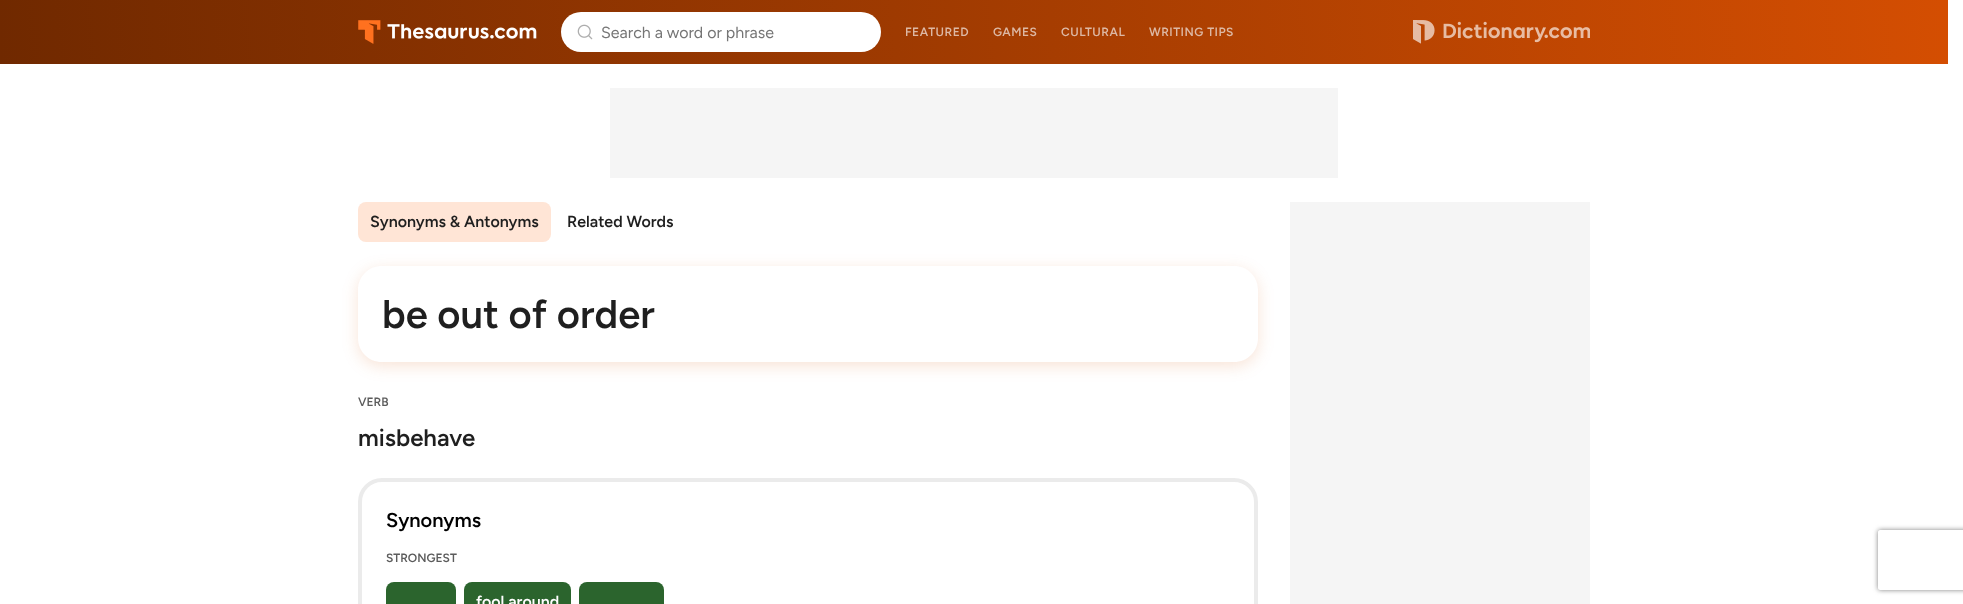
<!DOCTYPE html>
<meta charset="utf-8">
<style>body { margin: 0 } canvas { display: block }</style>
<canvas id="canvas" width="1963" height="604"></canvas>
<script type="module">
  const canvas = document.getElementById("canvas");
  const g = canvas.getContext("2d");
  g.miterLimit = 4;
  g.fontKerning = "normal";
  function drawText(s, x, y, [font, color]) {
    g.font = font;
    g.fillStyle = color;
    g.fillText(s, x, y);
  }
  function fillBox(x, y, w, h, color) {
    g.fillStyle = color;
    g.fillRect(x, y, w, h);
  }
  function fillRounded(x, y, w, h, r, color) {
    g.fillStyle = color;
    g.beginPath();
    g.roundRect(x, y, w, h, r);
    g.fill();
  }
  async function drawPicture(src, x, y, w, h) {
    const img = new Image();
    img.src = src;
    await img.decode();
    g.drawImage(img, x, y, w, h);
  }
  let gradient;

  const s1 = ["16px Figtree", "#757575"];
  const s2 = ["600 12px Figtree", "#DDB8A4"];
  const s3 = ["600 16px Figtree", "#1F1F1F"];
  const s4 = ["600 40px Figtree", "#1F1F1F"];
  const s5 = ["600 12px Figtree", "#5C5C5C"];
  const s6 = ["600 24px Figtree", "#1F1F1F"];
  const s7 = ["600 20px Figtree", "#000000"];
  const s8 = ["600 16px Figtree", "#FFFFFF"];

  fillBox(0, 0, 1963, 604, "#FFFFFF");
  gradient = g.createLinearGradient(2.9, 103, 1945, -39);
  gradient.addColorStop(0, "#702900");
  gradient.addColorStop(1, "#D44E02");
  g.fillStyle = gradient;
  g.fillRect(0, 0, 1948, 64);
  await drawPicture("pic1.png", 358, 20, 179, 24);
  fillRounded(561, 12, 320, 40, 20, "#FFFFFF");
  await drawPicture("pic2.png", 577, 24, 16, 16);
  drawText("Search a word or phrase", 601, 38, s1);
  g.letterSpacing = "0.5px";
  drawText("FEATURED", 905, 36, s2);
  drawText("GAMES", 993, 36, s2);
  drawText("CULTURAL", 1061, 36, s2);
  drawText("WRITING TIPS", 1149, 36, s2);
  await drawPicture("pic3.png", 1413, 20, 177, 24);
  fillBox(610, 88, 728, 90, "#F5F5F5");
  fillRounded(358, 202, 193, 40, 8, "#FFE5D6");
  g.letterSpacing = "0px";
  drawText("Synonyms & Antonyms", 370, 227, s3);
  drawText("Related Words", 567, 227, s3);
  g.save();
  g.beginPath();
  g.moveTo(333, 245);
  g.lineTo(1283, 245);
  g.lineTo(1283, 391);
  g.lineTo(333, 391);
  g.closePath();
  g.moveTo(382, 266);
  g.lineTo(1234, 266);
  g.bezierCurveTo(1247.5, 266, 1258, 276.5, 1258, 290);
  g.lineTo(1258, 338);
  g.bezierCurveTo(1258, 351.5, 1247.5, 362, 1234, 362);
  g.lineTo(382, 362);
  g.bezierCurveTo(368.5, 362, 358, 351.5, 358, 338);
  g.lineTo(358, 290);
  g.bezierCurveTo(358, 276.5, 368.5, 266, 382, 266);
  g.closePath();
  g.clip("evenodd");
  g.fillStyle = "rgba(212, 78, 2, 0.16)";
  g.filter = "blur(8px)";
  g.beginPath();
  g.roundRect(358, 270, 900, 96, 24);
  g.fill();
  g.filter = "none";
  g.restore();
  drawText("be out of order", 382, 328, s4);
  drawText("VERB", 358, 406, s5);
  drawText("misbehave", 358, 446, s6);
  g.beginPath();
  g.roundRect(360, 480, 896, 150, 22);
  g.strokeStyle = "#EBEBEB";
  g.lineWidth = 4;
  g.stroke();
  drawText("Synonyms", 386, 527, s7);
  drawText("STRONGEST", 386, 562, s5);
  fillRounded(386, 582, 70, 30, 8, "#2B642D");
  fillRounded(464, 582, 107, 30, 8, "#2B642D");
  drawText("fool around", 476, 607, s8);
  fillRounded(579, 582, 85, 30, 8, "#2B642D");
  fillBox(1290, 202, 300, 402, "#F5F5F5");
  g.save();
  g.beginPath();
  g.moveTo(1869, 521);
  g.lineTo(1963, 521);
  g.lineTo(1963, 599);
  g.lineTo(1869, 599);
  g.closePath();
  g.moveTo(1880, 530);
  g.lineTo(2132, 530);
  g.bezierCurveTo(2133, 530, 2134, 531, 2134, 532);
  g.lineTo(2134, 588);
  g.bezierCurveTo(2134, 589, 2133, 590, 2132, 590);
  g.lineTo(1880, 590);
  g.bezierCurveTo(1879, 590, 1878, 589, 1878, 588);
  g.lineTo(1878, 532);
  g.bezierCurveTo(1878, 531, 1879, 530, 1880, 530);
  g.closePath();
  g.clip("evenodd");
  g.fillStyle = "#808080";
  g.filter = "blur(2.5px)";
  g.beginPath();
  g.roundRect(1878, 530, 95, 60, 2);
  g.fill();
  g.filter = "none";
  g.restore();
</script>
